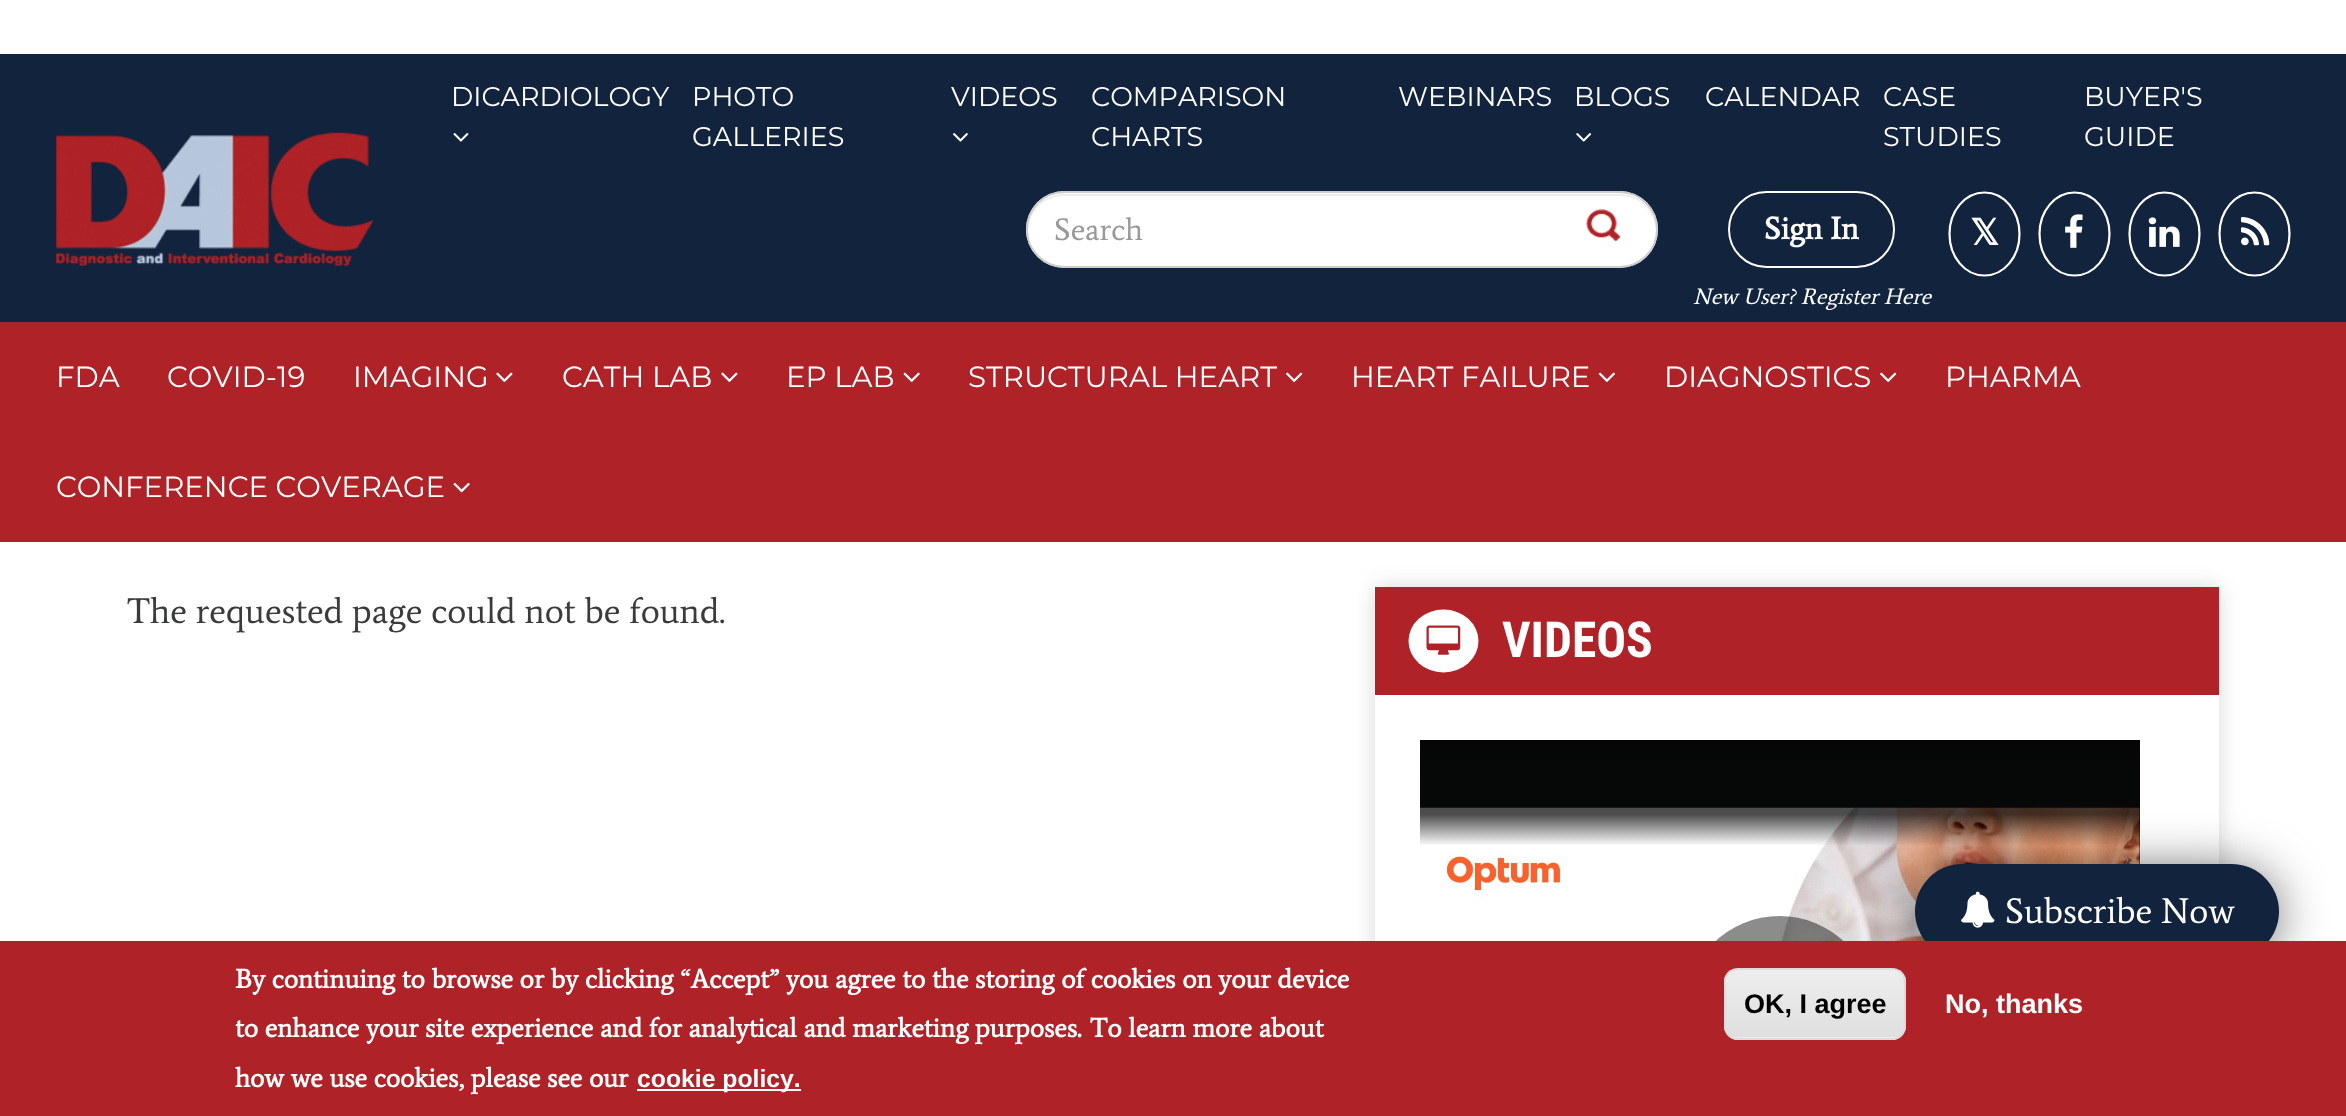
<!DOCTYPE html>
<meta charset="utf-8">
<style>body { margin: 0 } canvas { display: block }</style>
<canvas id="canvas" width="2346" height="1116"></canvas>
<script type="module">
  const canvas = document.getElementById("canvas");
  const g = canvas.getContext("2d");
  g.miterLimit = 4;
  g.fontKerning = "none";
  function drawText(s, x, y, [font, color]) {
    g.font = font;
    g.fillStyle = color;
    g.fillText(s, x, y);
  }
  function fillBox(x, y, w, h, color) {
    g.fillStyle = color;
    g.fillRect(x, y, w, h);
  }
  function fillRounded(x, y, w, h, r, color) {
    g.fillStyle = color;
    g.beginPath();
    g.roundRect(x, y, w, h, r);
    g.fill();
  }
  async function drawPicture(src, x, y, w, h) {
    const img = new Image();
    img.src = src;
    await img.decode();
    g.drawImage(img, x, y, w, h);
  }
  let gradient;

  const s1 = ["100 27px Montserrat", "#FFFFFF"];
  const s2 = ["31.5px Average", "#999999"];
  const s3 = ["bold 31.5px Average", "#FFFFFF"];
  const s4 = ["italic 22.5px Average", "#FFFFFF"];
  const s5 = ["bold 36px DejaVu Sans", "#FFFFFF"];
  const s6 = ["100 29.25px Montserrat", "#FFFFFF"];
  const s7 = ["36px Average", "#3A3C3C"];
  const s8 = ["bold 49.5px Roboto Condensed", "#FFFFFF"];
  const s9 = ["36px Average", "#FFFFFF"];
  const s10 = ["bold 27px Average", "#FFFFFF"];
  const s11 = ["bold 24.75px Liberation Sans", "#FFFFFF"];
  const s12 = ["bold 27px Liberation Sans", "#000000"];
  const s13 = ["bold 27px Liberation Sans", "#FFFFFF"];

  fillBox(0, 0, 2346, 1116, "#FFFFFF");
  fillBox(0, 54, 2346, 268, "#11233D");
  await drawPicture("pic1.png", 56, 132, 318, 134);
  drawText("DICARDIOLOGY", 451, 106, s1);
  await drawPicture("pic2.png", 453, 133, 16, 9);
  drawText("PHOTO", 692, 106, s1);
  drawText("GALLERIES", 692, 146, s1);
  drawText("VIDEOS", 951, 106, s1);
  await drawPicture("pic3.png", 953, 133, 15, 9);
  drawText("COMPARISON", 1091, 106, s1);
  drawText("CHARTS", 1091, 146, s1);
  drawText("WEBINARS", 1398, 106, s1);
  drawText("BLOGS", 1574, 106, s1);
  await drawPicture("pic4.png", 1576, 133, 16, 9);
  drawText("CALENDAR", 1705, 106, s1);
  drawText("CASE", 1883, 106, s1);
  drawText("STUDIES", 1883, 146, s1);
  drawText("BUYER'S", 2084, 106, s1);
  drawText("GUIDE", 2084, 146, s1);
  fillRounded(1026, 191, 632, 77, 38.5, "#FFFFFF");
  g.fillStyle = "#ECECEC";
  g.beginPath();
  g.moveTo(1064, 196);
  g.lineTo(1620, 196);
  g.bezierCurveTo(1640, 196, 1655, 211, 1656, 231);
  g.bezierCurveTo(1657, 211, 1640, 194, 1620, 194);
  g.lineTo(1064, 194);
  g.bezierCurveTo(1044, 194, 1027, 211, 1028, 231);
  g.bezierCurveTo(1029, 211, 1044, 196, 1064, 196);
  g.closePath();
  g.fill();
  g.beginPath();
  g.roundRect(1027, 192, 630, 75, 37.5);
  g.strokeStyle = "#CCCCCC";
  g.lineWidth = 2;
  g.stroke();
  drawText("Search", 1054, 240, s2);
  await drawPicture("pic5.png", 1586, 209, 34, 32);
  g.beginPath();
  g.roundRect(1729, 192, 165, 75, 37.5);
  g.strokeStyle = "#FFFFFF";
  g.stroke();
  drawText("Sign In", 1764, 239, s3);
  drawText("New User? Register Here", 1693, 304, s4);
  g.beginPath();
  g.moveTo(1984.5, 192.5);
  g.bezierCurveTo(2004, 192.5, 2019.5, 211, 2019.5, 234);
  g.bezierCurveTo(2019.5, 257, 2004, 275.5, 1984.5, 275.5);
  g.bezierCurveTo(1965, 275.5, 1949.5, 257, 1949.5, 234);
  g.bezierCurveTo(1949.5, 211, 1965, 192.5, 1984.5, 192.5);
  g.closePath();
  g.lineWidth = 2.2;
  g.stroke();
  drawText("𝕏", 1970, 245, s5);
  g.beginPath();
  g.moveTo(2074.5, 192.5);
  g.bezierCurveTo(2094, 192.5, 2109.5, 211, 2109.5, 234);
  g.bezierCurveTo(2109.5, 257, 2094, 275.5, 2074.5, 275.5);
  g.bezierCurveTo(2055, 275.5, 2039.5, 257, 2039.5, 234);
  g.bezierCurveTo(2039.5, 211, 2055, 192.5, 2074.5, 192.5);
  g.closePath();
  g.stroke();
  await drawPicture("pic6.png", 2065, 214, 18, 34);
  g.beginPath();
  g.moveTo(2164.5, 192.5);
  g.bezierCurveTo(2184, 192.5, 2199.5, 211, 2199.5, 234);
  g.bezierCurveTo(2199.5, 257, 2184, 275.5, 2164.5, 275.5);
  g.bezierCurveTo(2145, 275.5, 2129.5, 257, 2129.5, 234);
  g.bezierCurveTo(2129.5, 211, 2145, 192.5, 2164.5, 192.5);
  g.closePath();
  g.stroke();
  await drawPicture("pic7.png", 2148, 217, 32, 30);
  g.beginPath();
  g.moveTo(2254.5, 192.5);
  g.bezierCurveTo(2274, 192.5, 2289.5, 211, 2289.5, 234);
  g.bezierCurveTo(2289.5, 257, 2274, 275.5, 2254.5, 275.5);
  g.bezierCurveTo(2235, 275.5, 2219.5, 257, 2219.5, 234);
  g.bezierCurveTo(2219.5, 211, 2235, 192.5, 2254.5, 192.5);
  g.closePath();
  g.stroke();
  await drawPicture("pic8.png", 2241, 217, 29, 29);
  fillBox(0, 322, 2346, 220, "#AF2228");
  drawText("FDA", 56, 387, s6);
  drawText("COVID-19", 167, 387, s6);
  drawText("IMAGING", 353, 387, s6);
  await drawPicture("pic9.png", 496, 372, 17, 10);
  drawText("CATH LAB", 562, 387, s6);
  await drawPicture("pic9.png", 721, 372, 17, 10);
  drawText("EP LAB", 786, 387, s6);
  await drawPicture("pic10.png", 903, 372, 17, 10);
  drawText("STRUCTURAL HEART", 968, 387, s6);
  await drawPicture("pic11.png", 1286, 372, 17, 10);
  drawText("HEART FAILURE", 1351, 387, s6);
  await drawPicture("pic12.png", 1598, 372, 17, 10);
  drawText("DIAGNOSTICS", 1664, 387, s6);
  await drawPicture("pic11.png", 1880, 372, 17, 10);
  drawText("PHARMA", 1945, 387, s6);
  drawText("CONFERENCE COVERAGE", 56, 497, s6);
  await drawPicture("pic13.png", 453, 482, 17, 11);
  drawText("The requested page could not be found.", 127, 623, s7);
  g.fillStyle = "rgba(0, 0, 0, 0.15)";
  g.filter = "blur(11px)";
  g.beginPath();
  g.rect(1375, 587, 844, 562);
  g.fill();
  g.filter = "none";
  fillBox(1375, 695, 844, 246, "#FFFFFF");
  fillBox(1375, 587, 844, 108, "#AF2228");
  g.fillStyle = "#FFFFFF";
  g.beginPath();
  g.ellipse(1443.5, 641, 35, 31.5, 0, 0, Math.PI * 2);
  g.fill();
  await drawPicture("pic14.png", 1426, 625, 35, 30);
  drawText("VIDEOS", 1502, 657, s8);
  fillBox(1420, 740, 720, 124, "#151B17");
  await drawPicture("pic15.png", 1420, 807, 720, 134);
  gradient = g.createLinearGradient(1780, 740, 1780, 846);
  gradient.addColorStop(0, "rgba(0, 0, 0, 0.8)");
  gradient.addColorStop(0.3, "rgba(0, 0, 0, 0.7)");
  gradient.addColorStop(0.7, "rgba(0, 0, 0, 0.7)");
  gradient.addColorStop(1, "rgba(0, 0, 0, 0)");
  g.fillStyle = gradient;
  g.fillRect(1420, 740, 720, 105);
  g.fillStyle = "rgba(0, 0, 0, 0.45)";
  g.beginPath();
  g.arc(1779.5, 1010.5, 94.5, 0, Math.PI * 2);
  g.fill();
  g.fillStyle = "rgba(0, 0, 0, 0.75)";
  g.filter = "blur(27px)";
  g.beginPath();
  g.roundRect(1922, 875, 351, 81, 40.5);
  g.fill();
  g.filter = "none";
  fillRounded(1915, 864, 364, 95, 47.5, "#11233D");
  await drawPicture("pic16.png", 1961, 891, 34, 37);
  drawText("Subscribe Now", 2005, 923, s9);
  fillBox(0, 941, 2346, 175, "#AF2228");
  drawText("By continuing to browse or by clicking “Accept”", 235, 988, s10);
  drawText("you agree to the storing of cookies on your device", 786, 988, s10);
  drawText("to enhance your site experience and for analytical and marketing purposes.", 235, 1037, s10);
  drawText("To learn more about", 1090, 1037, s10);
  drawText("how we use cookies, please see our", 235, 1087, s10);
  fillBox(637, 1089, 164, 2, "#FFFFFF");
  drawText("cookie policy.", 637, 1087, s11);
  g.save();
  g.beginPath();
  g.roundRect(1724, 968, 182, 72, 14);
  g.clip();
  gradient = g.createLinearGradient(1815, 970, 1815, 1037);
  gradient.addColorStop(0.05, "#EDEDED");
  gradient.addColorStop(1, "#DFDFDF");
  g.fillStyle = gradient;
  g.fillRect(1724, 970, 182, 67);
  gradient = g.createLinearGradient(1815, 1037, 1815, 1105);
  gradient.addColorStop(0.05, "#EDEDED");
  gradient.addColorStop(1, "#DFDFDF");
  g.fillStyle = gradient;
  g.fillRect(1724, 1037, 182, 3);
  g.restore();
  g.beginPath();
  g.roundRect(1725, 969, 180, 70, 13);
  g.strokeStyle = "#DCDCDC";
  g.lineWidth = 2;
  g.stroke();
  drawText("OK, I agree", 1744, 1013, s12);
  drawText("No, thanks", 1945, 1013, s13);
</script>
